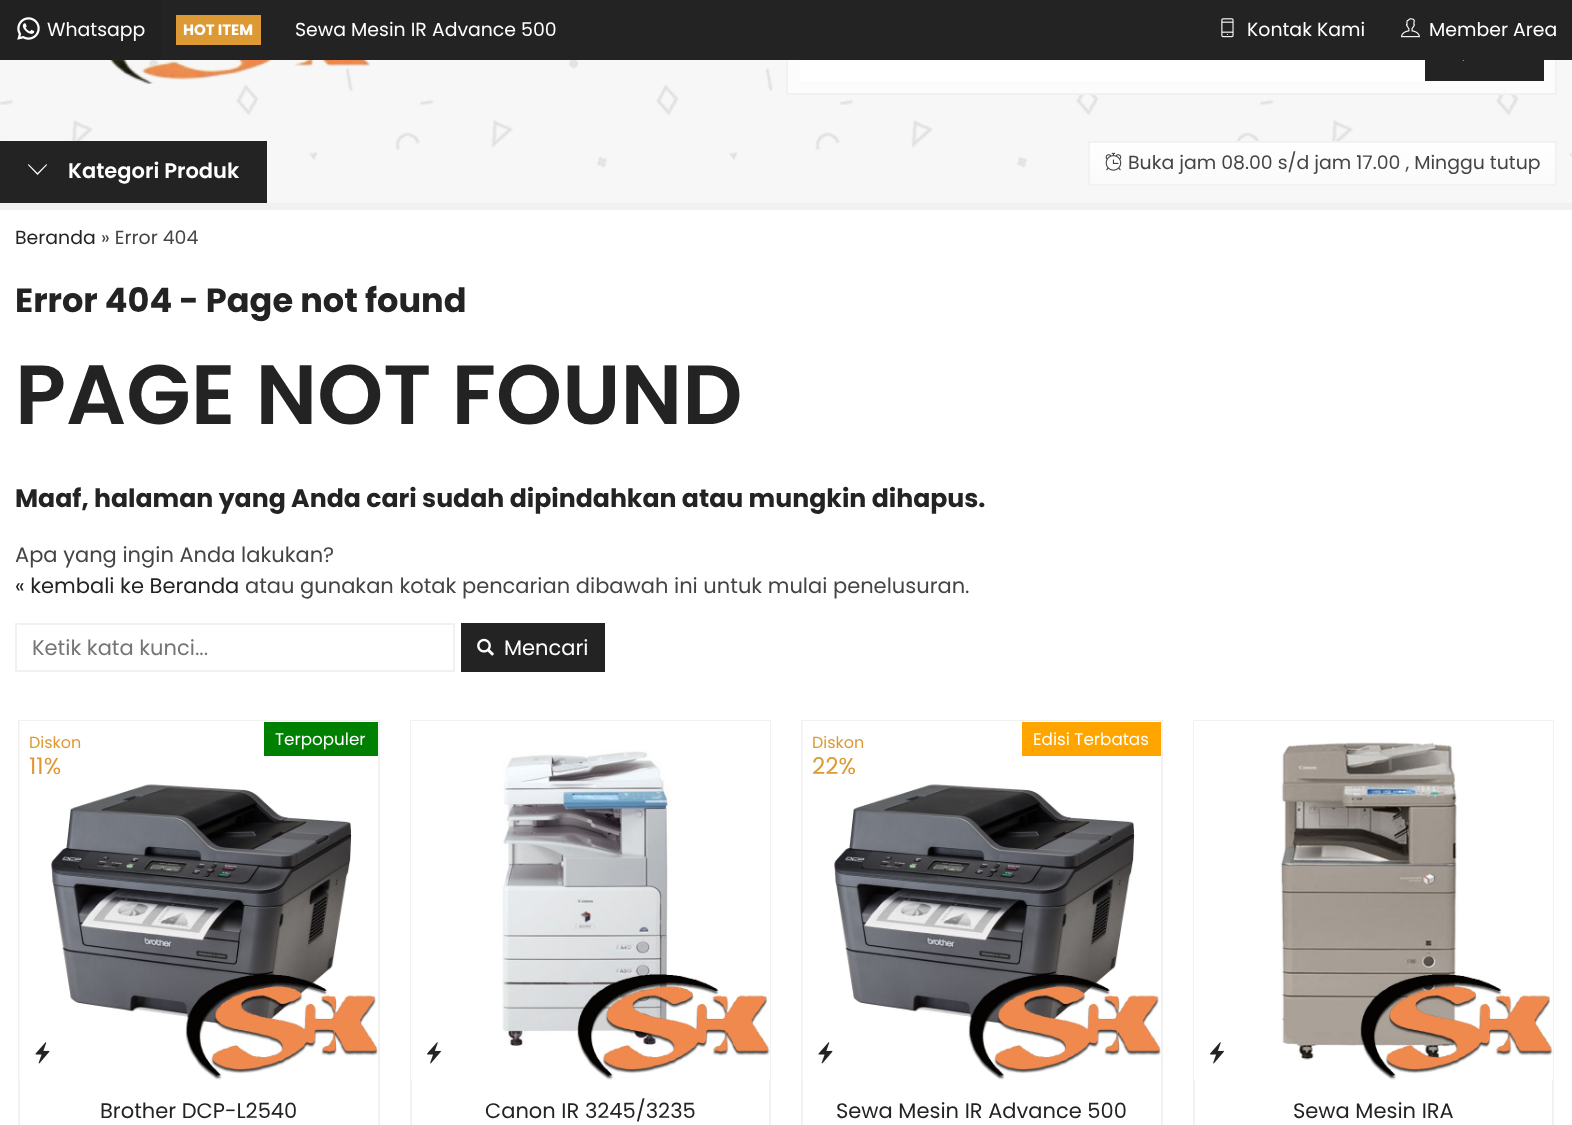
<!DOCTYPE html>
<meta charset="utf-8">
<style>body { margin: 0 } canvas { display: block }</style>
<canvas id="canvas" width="1572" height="1125"></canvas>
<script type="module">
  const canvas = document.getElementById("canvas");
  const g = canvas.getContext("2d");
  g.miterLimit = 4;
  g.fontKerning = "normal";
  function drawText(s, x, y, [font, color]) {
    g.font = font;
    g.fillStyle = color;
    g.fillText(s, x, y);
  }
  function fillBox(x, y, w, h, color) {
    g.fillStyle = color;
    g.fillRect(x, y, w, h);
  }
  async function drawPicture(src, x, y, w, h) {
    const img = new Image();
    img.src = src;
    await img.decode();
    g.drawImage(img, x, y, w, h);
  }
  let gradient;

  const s1 = ["18.9px Poppins", "#FFFFFF"];
  const s2 = ["bold 15px Poppins", "#FFFFFF"];
  const s3 = ["600 21px Poppins", "#FFFFFF"];
  const s4 = ["18.9px Poppins", "#444444"];
  const s5 = ["18.9px Poppins", "#232323"];
  const s6 = ["bold 33.6px Poppins", "#232323"];
  const s7 = ["600 84px Poppins", "#232323"];
  const s8 = ["bold 25.2px Poppins", "#232323"];
  const s9 = ["21px Poppins", "#444444"];
  const s10 = ["21px Poppins", "#232323"];
  const s11 = ["21px Poppins", "#757575"];
  const s12 = ["21px Poppins", "#FFFFFF"];
  const s13 = ["16px Poppins", "#DD9933"];
  const s14 = ["23px Poppins", "#DD9933"];
  const s15 = ["16.75px Poppins", "#FFFFFF"];

  fillBox(0, 0, 1572, 1125, "#F7F7F7");
  await drawPicture("pic4.png", 0, 60, 1572, 108);
  fillBox(788, 60, 767, 33, "#FCFCFC");
  g.strokeStyle = "#F1F1F1";
  g.lineWidth = 2;
  g.strokeRect(787, 9, 769, 85);
  fillBox(161, 0, 1411, 60, "#232323");
  fillBox(0, 0, 161, 60, "#212121");
  await drawPicture("pic1.png", 17, 17, 23, 23);
  drawText("Whatsapp", 47, 36, s1);
  fillBox(176, 15, 85, 30, "#DD9933");
  drawText("HOT ITEM", 183, 35, s2);
  drawText("Sewa Mesin IR Advance 500", 295, 36, s1);
  await drawPicture("pic2.png", 1221, 18, 13, 20);
  drawText("Kontak Kami", 1247, 36, s1);
  await drawPicture("pic3.png", 1401, 18, 19, 20);
  drawText("Member Area", 1429, 36, s1);
  await drawPicture("pic5.png", 109, 60, 262, 24);
  fillBox(800, 60, 625, 21, "#FFFFFF");
  fillBox(1425, 60, 119, 21, "#232323");
  await drawPicture("pic6.png", 1462, 60, 2, 1);
  fillBox(0, 141, 267, 62, "#232323");
  g.fillStyle = "#FFFFFF";
  g.beginPath();
  g.moveTo(47, 165);
  g.lineTo(37.5, 175);
  g.lineTo(28, 165);
  g.lineTo(28.5, 164);
  g.lineTo(37.5, 173);
  g.lineTo(46.5, 164);
  g.closePath();
  g.fill();
  drawText("Kategori Produk", 68, 178, s3);
  gradient = g.createLinearGradient(1322, 185, 1322, 143);
  gradient.addColorStop(0, "#FAFAFA");
  gradient.addColorStop(1, "#FFFFFF");
  g.fillStyle = gradient;
  g.fillRect(1090, 143, 465, 41);
  g.strokeStyle = "#F2F2F2";
  g.strokeRect(1089, 142, 467, 43);
  await drawPicture("pic7.png", 1105, 152, 17, 19);
  drawText("Buka jam 08.00 s/d jam 17.00 , Minggu tutup", 1128, 169, s4);
  fillBox(0, 210, 1572, 915, "#FFFFFF");
  fillBox(0, 203, 1572, 7, "#F1F1F1");
  drawText("Beranda", 15, 244, s5);
  drawText("» Error 404", 101, 244, s4);
  drawText("Error 404 - Page not found", 15, 312, s6);
  drawText("PAGE NOT FOUND", 15, 424, s7);
  drawText("Maaf, halaman yang Anda cari sudah dipindahkan atau mungkin dihapus.", 15, 507, s8);
  drawText("Apa yang ingin Anda lakukan?", 15, 562, s9);
  drawText("« kembali ke Beranda", 15, 593, s10);
  drawText("atau gunakan kotak pencarian dibawah ini untuk mulai penelusuran.", 245, 593, s9);
  g.strokeStyle = "#F1F1F1";
  g.strokeRect(16, 624, 438, 47);
  drawText("Ketik kata kunci...", 32, 655, s11);
  fillBox(461, 623, 144, 49, "#232323");
  await drawPicture("pic8.png", 477, 638, 17, 18);
  drawText("Mencari", 504, 655, s12);
  g.strokeRect(19, 721, 360, 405);
  await drawPicture("pic9.png", 19, 721, 359, 359);
  drawText("Diskon", 29, 748, s13);
  drawText("11%", 29, 774, s14);
  fillBox(264, 722, 114, 34, "#008000");
  drawText("Terpopuler", 275, 745, s15);
  await drawPicture("pic10.png", 35, 1042, 15, 22);
  drawText("Brother DCP-L2540", 100, 1118, s10);
  g.strokeRect(411, 721, 359, 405);
  await drawPicture("pic11.png", 411, 721, 359, 359);
  await drawPicture("pic12.png", 427, 1042, 14, 22);
  drawText("Canon IR 3245/3235", 485, 1118, s10);
  g.strokeRect(802, 721, 360, 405);
  await drawPicture("pic13.png", 802, 721, 359, 359);
  drawText("Diskon", 812, 748, s13);
  drawText("22%", 812, 774, s14);
  fillBox(1022, 722, 139, 34, "#FFA500");
  drawText("Edisi Terbatas", 1033, 745, s15);
  await drawPicture("pic10.png", 818, 1042, 15, 22);
  drawText("Sewa Mesin IR Advance 500", 836, 1118, s10);
  g.strokeRect(1194, 721, 359, 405);
  await drawPicture("pic14.png", 1194, 721, 359, 359);
  await drawPicture("pic12.png", 1210, 1042, 14, 22);
  drawText("Sewa Mesin IRA", 1293, 1118, s10);
</script>
